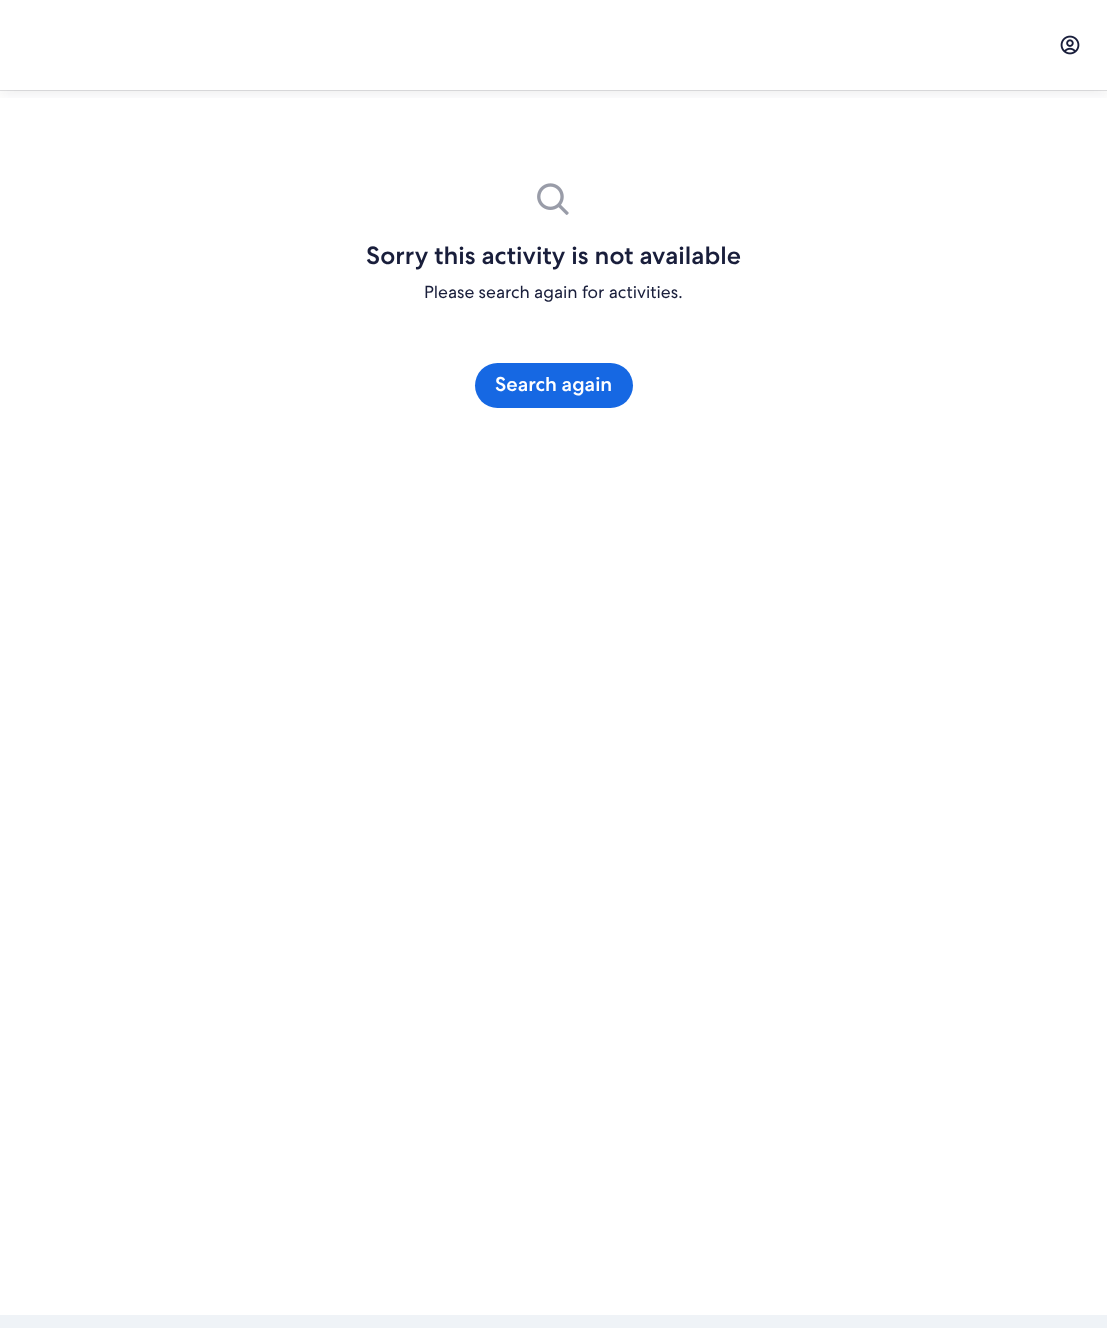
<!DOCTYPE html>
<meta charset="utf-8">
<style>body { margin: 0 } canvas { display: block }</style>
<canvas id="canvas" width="1107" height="1328"></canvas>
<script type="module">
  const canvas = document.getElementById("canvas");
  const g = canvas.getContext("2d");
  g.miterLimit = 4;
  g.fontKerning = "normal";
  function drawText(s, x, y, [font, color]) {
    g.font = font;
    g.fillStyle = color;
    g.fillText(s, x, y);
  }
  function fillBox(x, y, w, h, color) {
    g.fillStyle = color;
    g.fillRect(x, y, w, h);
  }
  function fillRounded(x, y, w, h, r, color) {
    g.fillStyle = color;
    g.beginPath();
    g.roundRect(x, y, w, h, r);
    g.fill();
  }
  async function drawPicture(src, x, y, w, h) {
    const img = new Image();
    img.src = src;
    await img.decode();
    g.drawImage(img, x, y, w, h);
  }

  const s1 = ["500 25px 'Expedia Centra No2'", "#191E3B"];
  const s2 = ["17.5px 'Expedia Centra No2'", "#191E3B"];
  const s3 = ["500 20px 'Expedia Centra No2'", "#FFFFFF"];

  fillBox(0, 0, 1107, 1328, "#EFF3F7");
  fillBox(0, 0, 1107, 1315, "#FFFFFF");
  g.fillStyle = "#E2E2E4";
  g.beginPath();
  g.moveTo(0, 90);
  g.lineTo(0, 91);
  g.lineTo(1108, 91);
  g.lineTo(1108, 1);
  g.lineTo(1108, 90);
  g.closePath();
  g.fill();
  g.save();
  g.beginPath();
  g.rect(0, 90, 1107, 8);
  g.clip();
  g.fillStyle = "rgba(12, 14, 28, 0.08)";
  g.filter = "blur(7.5px)";
  g.beginPath();
  g.rect(0, 3, 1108, 90);
  g.fill();
  g.filter = "none";
  g.restore();
  await drawPicture("pic1.png", 1060, 35, 20, 20);
  await drawPicture("pic2.png", 537, 183, 32, 32);
  drawText("Sorry this activity is not available", 366, 264, s1);
  drawText("Please search again for activities.", 424, 298, s2);
  fillRounded(475, 363, 158, 45, 22.5, "#1668E3");
  drawText("Search again", 495, 391, s3);
</script>
